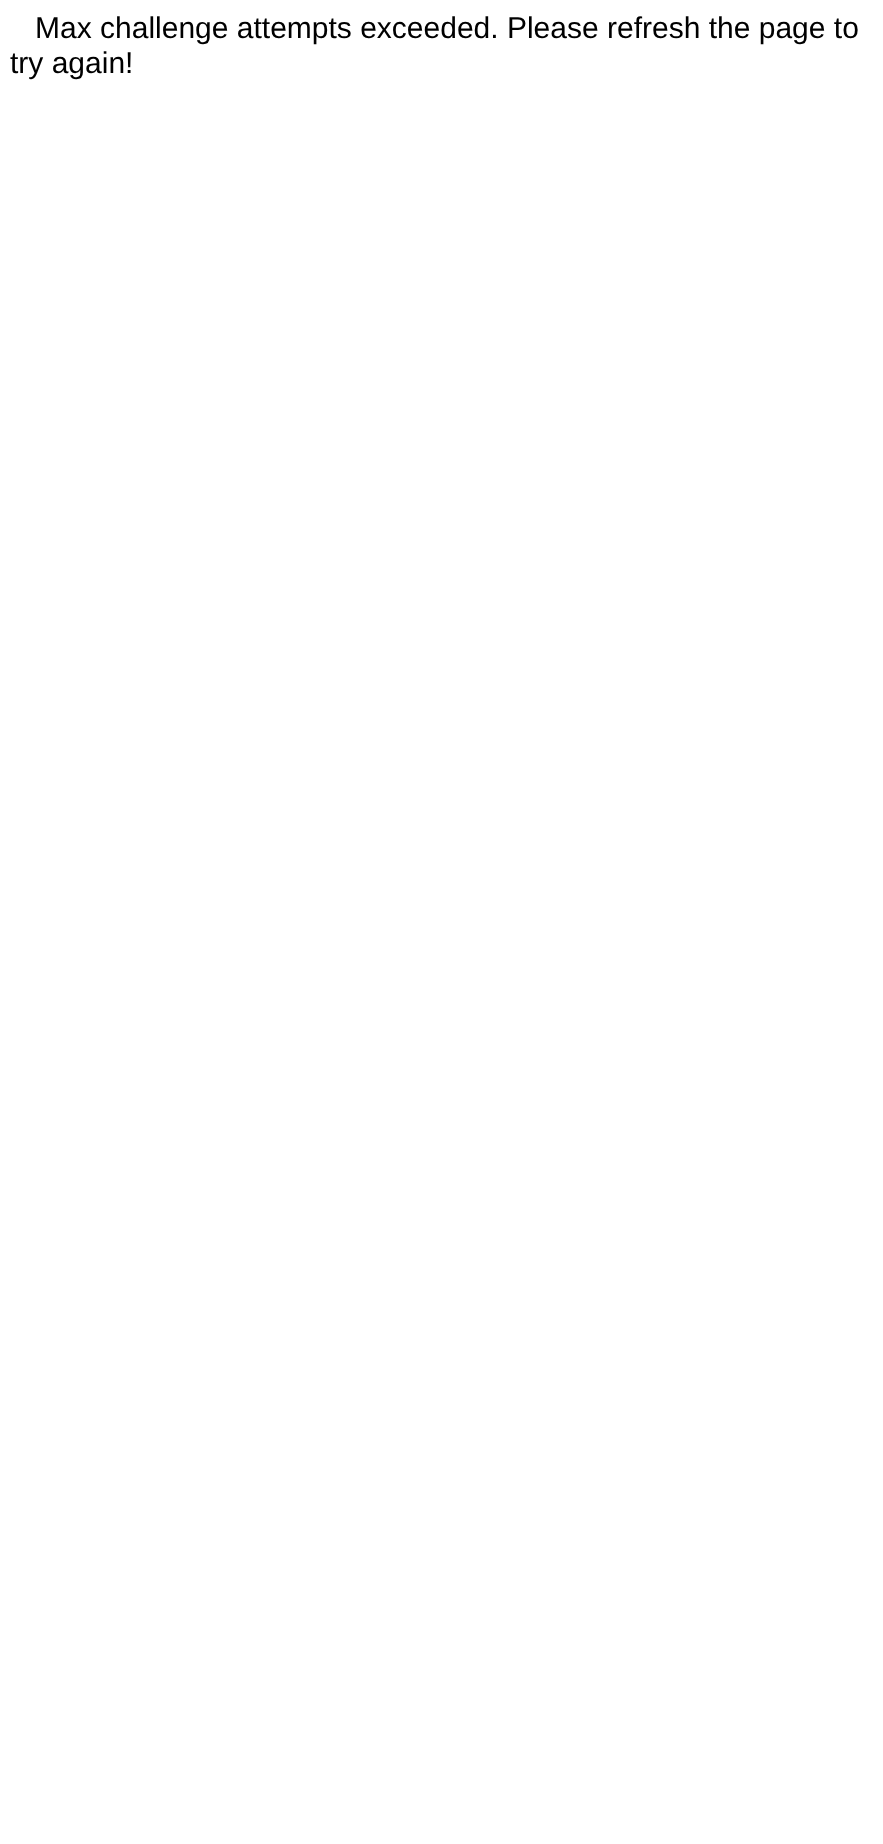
<!DOCTYPE html>
<meta charset="utf-8">
<style>body { margin: 0 } canvas { display: block }</style>
<canvas id="canvas" width="883" height="1844"></canvas>
<script type="module">
  const canvas = document.getElementById("canvas");
  const g = canvas.getContext("2d");
  g.miterLimit = 4;
  g.fontKerning = "normal";
  function drawText(s, x, y, [font, color]) {
    g.font = font;
    g.fillStyle = color;
    g.fillText(s, x, y);
  }
  function fillBox(x, y, w, h, color) {
    g.fillStyle = color;
    g.fillRect(x, y, w, h);
  }

  const s1 = ["30px Liberation Sans", "#000000"];

  fillBox(0, 0, 883, 1844, "#FFFFFF");
  drawText("Max challenge attempts exceeded. Please refresh the page to", 35, 38, s1);
  drawText("try again!", 10, 73, s1);
</script>
